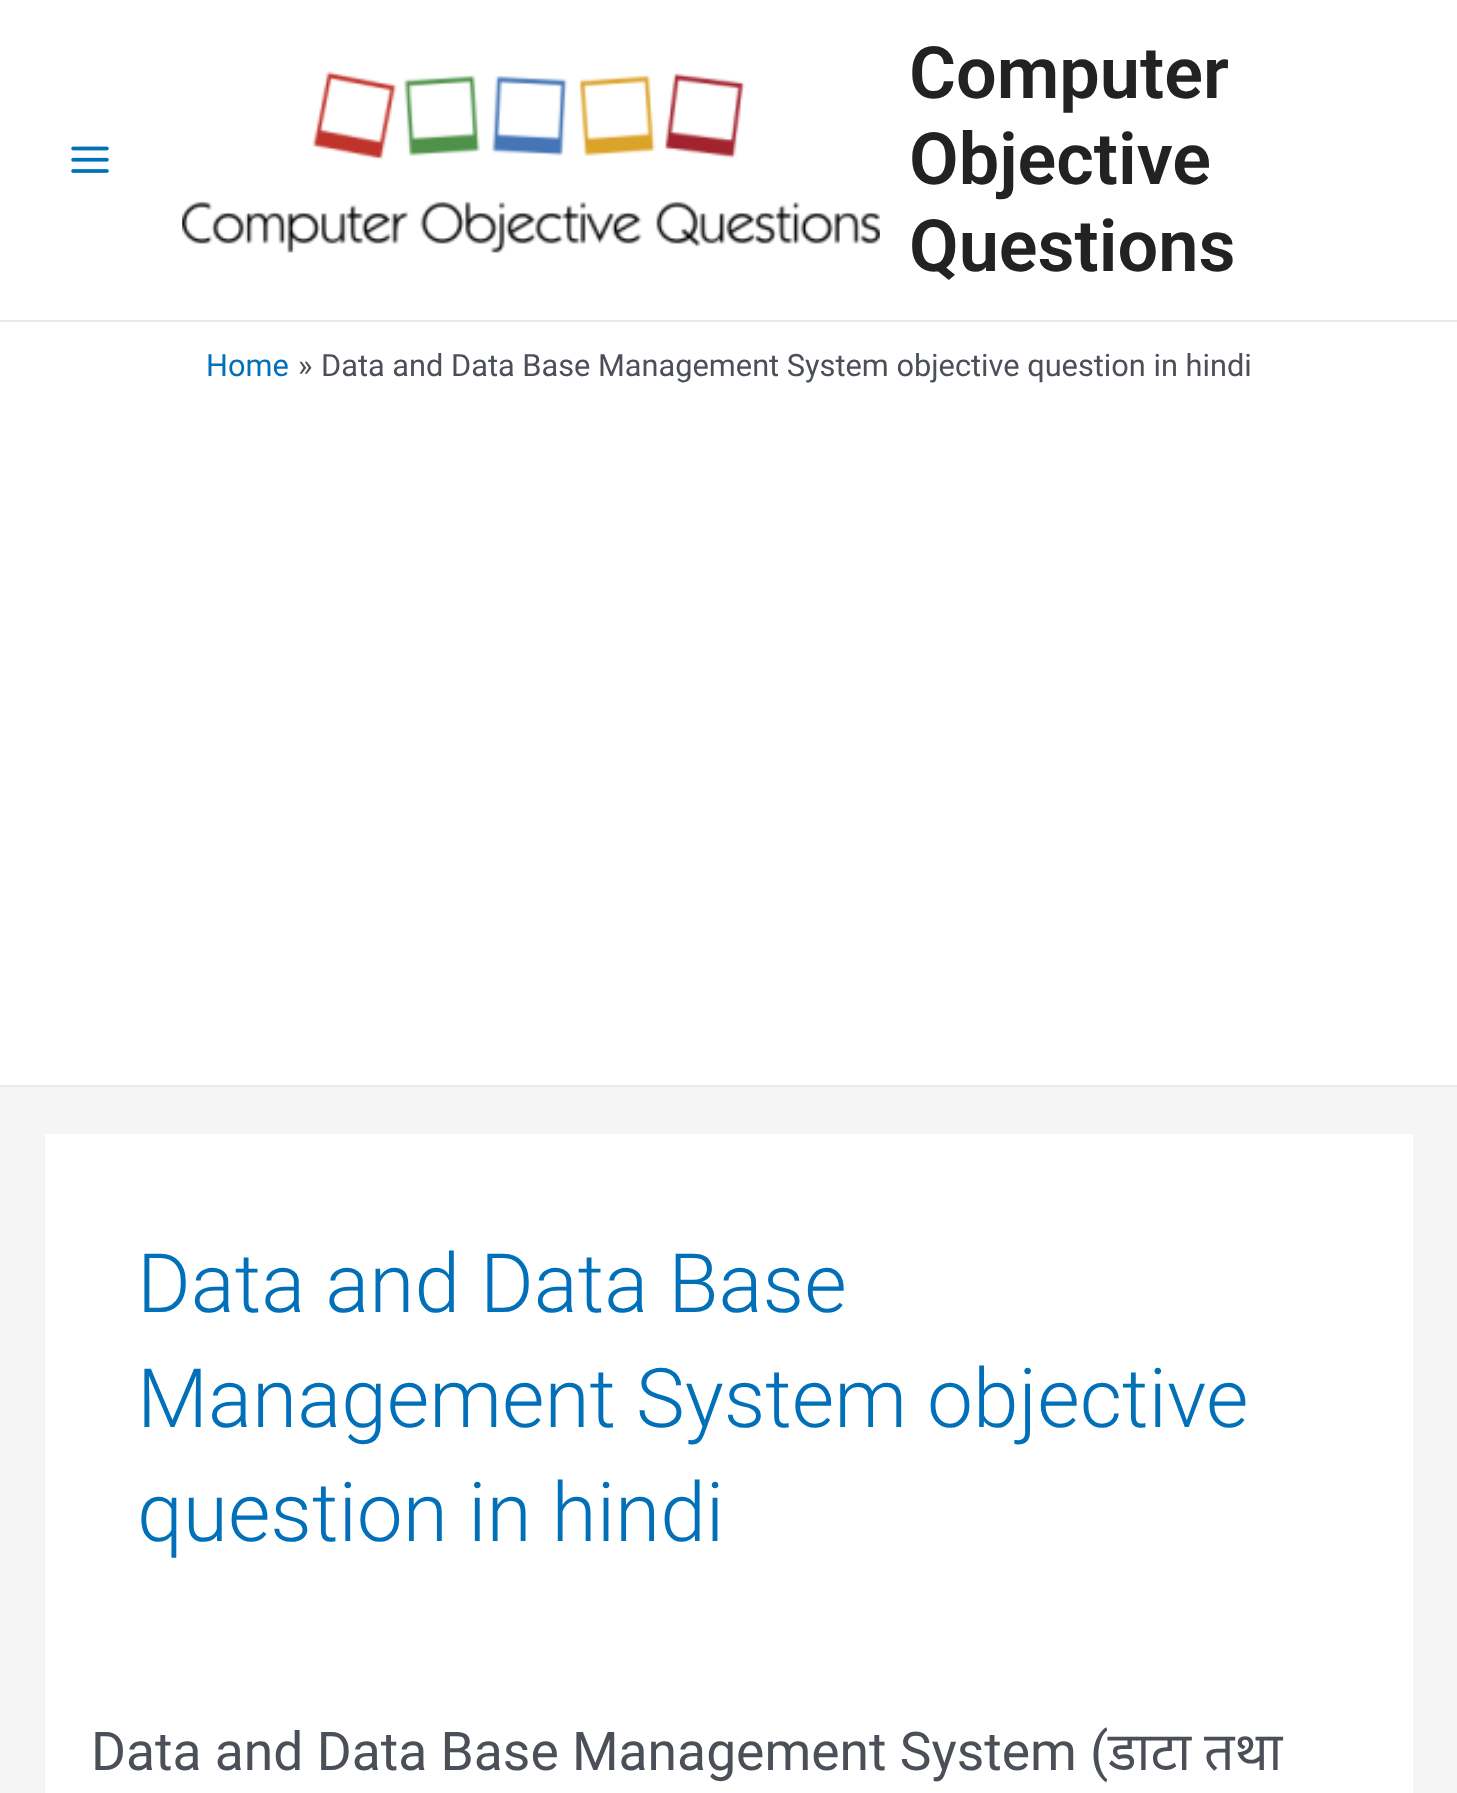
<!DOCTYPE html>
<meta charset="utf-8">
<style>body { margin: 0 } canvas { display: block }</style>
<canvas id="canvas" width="1457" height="1793"></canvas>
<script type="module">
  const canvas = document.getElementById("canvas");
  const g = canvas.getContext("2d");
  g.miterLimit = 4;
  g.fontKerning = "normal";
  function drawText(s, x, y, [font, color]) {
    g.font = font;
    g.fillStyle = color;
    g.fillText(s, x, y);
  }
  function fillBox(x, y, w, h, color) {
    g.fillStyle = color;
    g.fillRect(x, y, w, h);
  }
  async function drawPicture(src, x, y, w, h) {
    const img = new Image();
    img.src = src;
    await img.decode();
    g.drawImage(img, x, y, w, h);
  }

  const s1 = ["600 72px Roboto", "#222222"];
  const s2 = ["30.75px Roboto", "#0170B9"];
  const s3 = ["30.75px Roboto", "#4B4F58"];
  const s4 = ["300 82.1px Roboto", "#0170B9"];
  const s5 = ["53.4px Roboto", "#4B4F58"];
  const s6 = ["53.4px Noto Sans", "#4B4F58"];

  fillBox(0, 0, 1457, 1793, "#F5F5F5");
  fillBox(0, 0, 1457, 320, "#FFFFFF");
  fillBox(0, 320, 1457, 2, "#EAEAEA");
  await drawPicture("pic1.png", 71, 146, 38, 27);
  await drawPicture("pic2.png", 182, 71, 698, 182);
  drawText("Computer", 909, 98, s1);
  drawText("Objective", 909, 184, s1);
  drawText("Questions", 909, 271, s1);
  fillBox(0, 322, 1457, 763, "#FFFFFF");
  fillBox(0, 1085, 1457, 2, "#EAEAEA");
  drawText("Home", 206, 376, s2);
  drawText("»", 298, 376, s3);
  drawText("Data and Data Base Management System objective question in hindi", 321, 376, s3);
  fillBox(45, 1134, 1368, 659, "#FFFFFF");
  drawText("Data and Data Base", 137, 1312, s4);
  drawText("Management System objective", 137, 1427, s4);
  drawText("question in hindi", 137, 1541, s4);
  drawText("Data and Data Base Management System (", 91, 1770, s5);
  drawText("डाटा", 1108, 1770, s6);
  drawText("तथा", 1204, 1770, s6);
</script>
